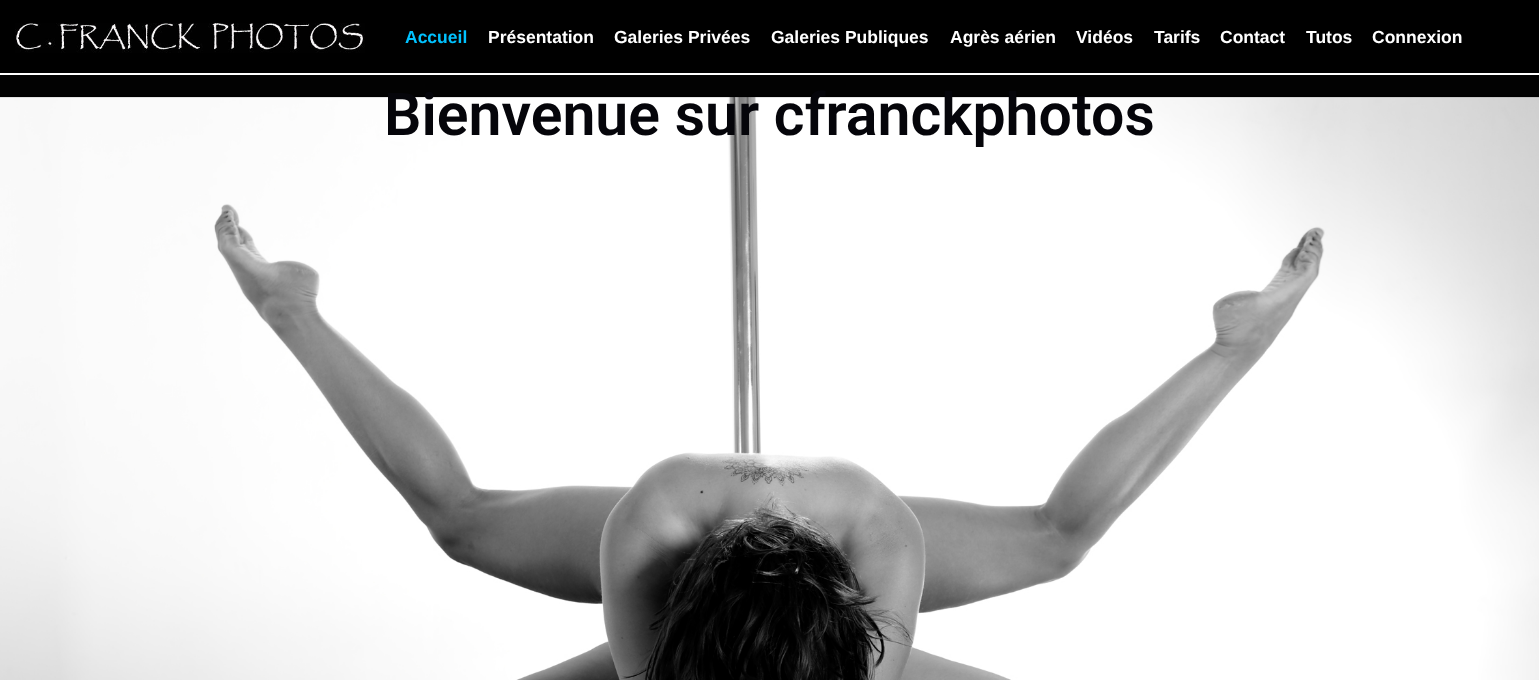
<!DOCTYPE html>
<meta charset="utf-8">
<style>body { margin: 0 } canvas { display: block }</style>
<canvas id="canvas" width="1539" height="680"></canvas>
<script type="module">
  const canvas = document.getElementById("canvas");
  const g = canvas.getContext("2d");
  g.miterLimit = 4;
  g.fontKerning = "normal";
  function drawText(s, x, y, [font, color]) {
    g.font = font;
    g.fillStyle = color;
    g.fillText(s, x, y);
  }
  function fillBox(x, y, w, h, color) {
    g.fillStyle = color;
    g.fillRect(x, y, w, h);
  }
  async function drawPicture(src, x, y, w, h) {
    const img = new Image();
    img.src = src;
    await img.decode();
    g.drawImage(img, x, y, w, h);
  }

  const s1 = ["bold 17.5px Liberation Sans", "#00C2FF"];
  const s2 = ["bold 17.5px Liberation Sans", "#FFFFFF"];
  const s3 = ["600 59px Roboto", "#05050A"];

  fillBox(0, 0, 1539, 680, "#000000");
  fillBox(0, 73, 1539, 2, "#FFFFFF");
  await drawPicture("pic1.png", 15, 23, 350, 30);
  drawText("Accueil", 405, 43, s1);
  drawText("Présentation", 488, 43, s2);
  drawText("Galeries Privées", 614, 43, s2);
  drawText("Galeries Publiques", 771, 43, s2);
  drawText("Agrès aérien", 950, 43, s2);
  drawText("Vidéos", 1076, 43, s2);
  drawText("Tarifs", 1154, 43, s2);
  drawText("Contact", 1220, 43, s2);
  drawText("Tutos", 1306, 43, s2);
  drawText("Connexion", 1372, 43, s2);
  await drawPicture("pic2.png", 0, 75, 1539, 605);
  drawText("Bienvenue sur cfranckphotos", 384, 135, s3);
</script>
